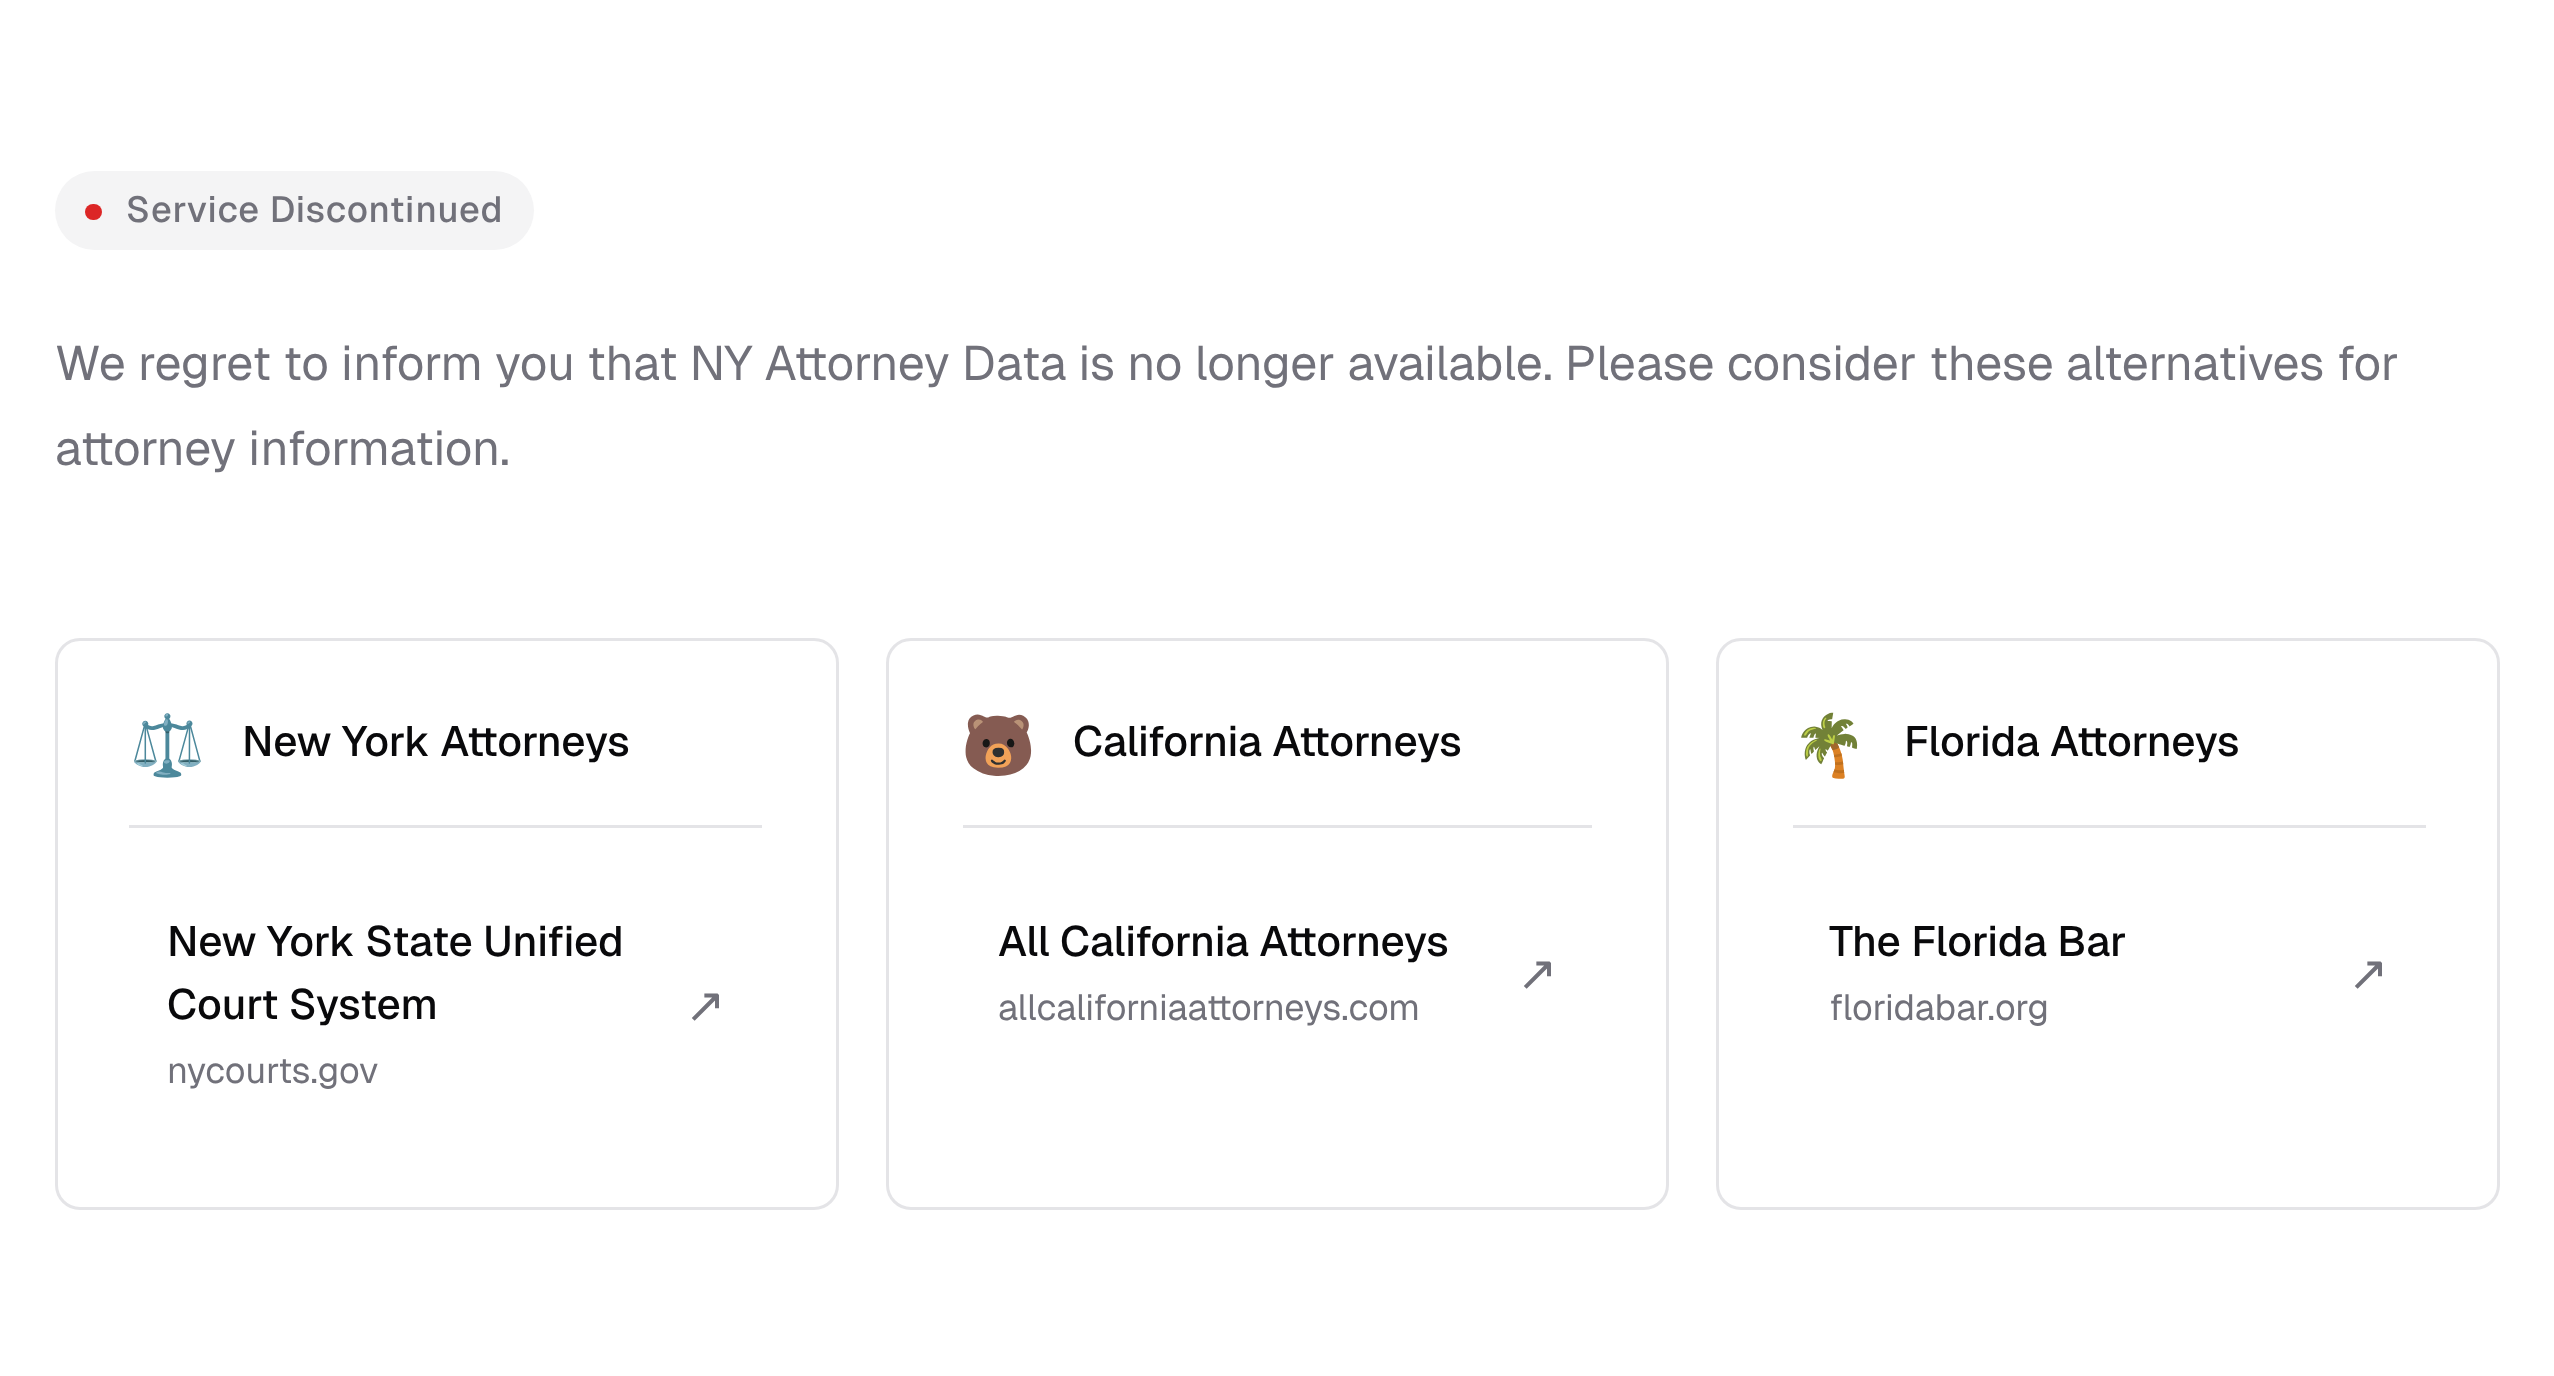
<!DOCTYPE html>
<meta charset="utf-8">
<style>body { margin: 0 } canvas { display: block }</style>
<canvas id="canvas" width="2554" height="1376"></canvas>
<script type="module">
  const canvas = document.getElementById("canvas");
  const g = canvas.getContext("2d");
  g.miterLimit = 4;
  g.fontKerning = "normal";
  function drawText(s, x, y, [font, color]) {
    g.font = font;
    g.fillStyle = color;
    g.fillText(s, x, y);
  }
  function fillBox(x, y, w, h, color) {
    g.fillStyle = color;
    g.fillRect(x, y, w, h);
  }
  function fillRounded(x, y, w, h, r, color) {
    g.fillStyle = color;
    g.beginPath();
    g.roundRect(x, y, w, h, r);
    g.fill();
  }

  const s1 = ["500 36.25px Geist", "#71717A"];
  const s2 = ["48.4px Geist", "#71717A"];
  const s3 = ["60px Noto Color Emoji", "#09090B"];
  const s4 = ["500 42.4px Geist", "#09090B"];
  const s5 = ["36.25px Geist", "#71717A"];
  const s6 = ["48.4px DejaVu Sans", "#71717A"];

  fillBox(0, 0, 2554, 1376, "#FFFFFF");
  fillRounded(55, 171, 479, 79, 39.5, "#F4F4F5");
  fillRounded(85, 204, 17, 16, 8, "#DC2626");
  g.letterSpacing = "0.9px";
  drawText("Service Discontinued", 126, 222, s1);
  g.letterSpacing = "0px";
  drawText("We regret to inform you that NY Attorney Data is no longer available. Please consider these alternatives for", 55, 380, s2);
  drawText("attorney information.", 55, 465, s2);
  g.beginPath();
  g.roundRect(56.5, 639.5, 781, 569, 23.5);
  g.strokeStyle = "#E4E4E7";
  g.lineWidth = 3;
  g.stroke();
  fillBox(129, 825, 633, 3, "#E4E4E7");
  drawText("⚖️", 130, 766, s3);
  drawText("New York Attorneys", 242, 756, s4);
  drawText("New York State Unified", 167, 956, s4);
  drawText("Court System", 167, 1019, s4);
  drawText("nycourts.gov", 167, 1083, s5);
  drawText("↗", 685, 1022, s6);
  g.beginPath();
  g.roundRect(887.5, 639.5, 780, 569, 23.5);
  g.stroke();
  fillBox(963, 825, 629, 3, "#E4E4E7");
  drawText("🐻", 961, 766, s3);
  drawText("California Attorneys", 1073, 756, s4);
  drawText("All California Attorneys", 998, 956, s4);
  drawText("allcaliforniaattorneys.com", 998, 1020, s5);
  drawText("↗", 1517, 990, s6);
  g.beginPath();
  g.roundRect(1717.5, 639.5, 781, 569, 23.5);
  g.stroke();
  fillBox(1793, 825, 633, 3, "#E4E4E7");
  drawText("🌴", 1792, 766, s3);
  drawText("Florida Attorneys", 1904, 756, s4);
  drawText("The Florida Bar", 1829, 956, s4);
  drawText("floridabar.org", 1829, 1020, s5);
  drawText("↗", 2348, 990, s6);
</script>
